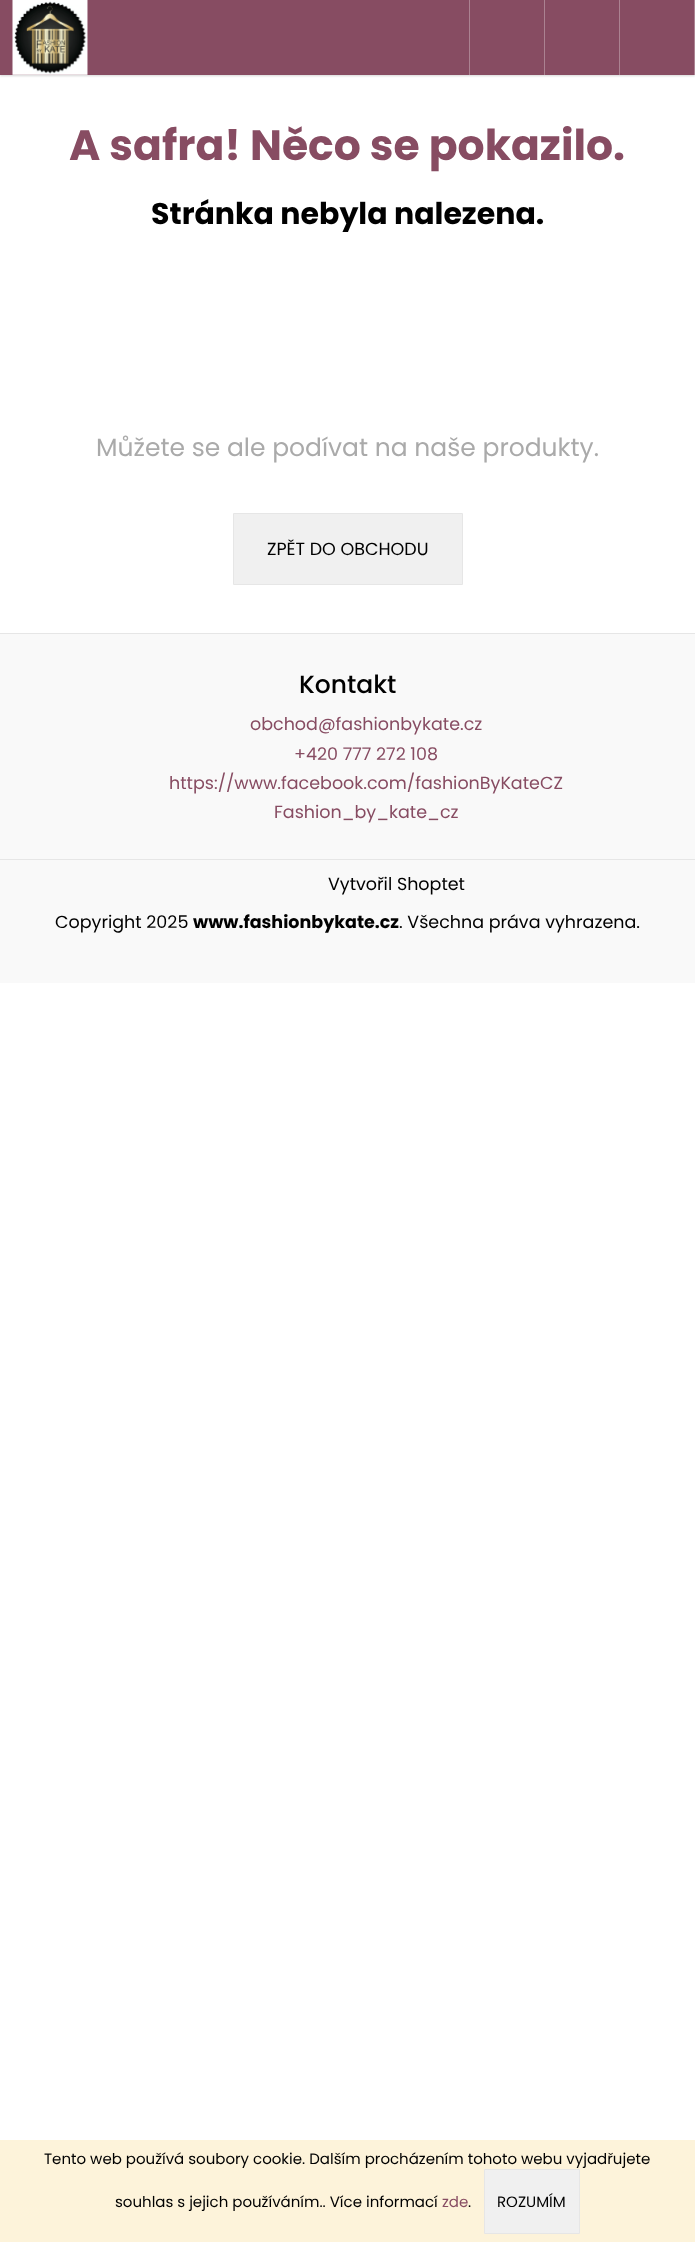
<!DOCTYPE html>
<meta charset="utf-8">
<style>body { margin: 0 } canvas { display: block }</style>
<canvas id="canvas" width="695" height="2242"></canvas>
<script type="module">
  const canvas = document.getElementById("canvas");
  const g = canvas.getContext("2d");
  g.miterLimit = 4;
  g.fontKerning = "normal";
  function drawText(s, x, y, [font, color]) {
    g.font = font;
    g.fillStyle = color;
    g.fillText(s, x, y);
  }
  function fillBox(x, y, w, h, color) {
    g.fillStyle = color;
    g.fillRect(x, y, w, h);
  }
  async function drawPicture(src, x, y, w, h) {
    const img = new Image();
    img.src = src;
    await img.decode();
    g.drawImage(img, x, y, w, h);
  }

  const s1 = ["bold 42.5px Poppins", "#874C62"];
  const s2 = ["bold 30px Poppins", "#000000"];
  const s3 = ["25px Poppins", "#AAAAAA"];
  const s4 = ["17.5px Poppins", "#000000"];
  const s5 = ["500 25px Poppins", "#000000"];
  const s6 = ["17.5px Poppins", "#874C62"];
  const s7 = ["bold 17.5px Poppins", "#000000"];
  const s8 = ["15px Poppins", "#000000"];
  const s9 = ["15px Poppins", "#874C62"];

  fillBox(0, 0, 695, 2242, "#FFFFFF");
  g.fillStyle = "rgba(0, 0, 0, 0.16)";
  g.filter = "blur(1px)";
  g.beginPath();
  g.rect(0, 1, 695, 75);
  g.fill();
  g.filter = "none";
  fillBox(0, 0, 694, 75, "#874C62");
  await drawPicture("pic1.png", 12, 0, 76, 75);
  fillBox(694, 0, 1, 75, "#AB8291");
  fillBox(469, 0, 1, 75, "#AB8291");
  fillBox(544, 0, 1, 75, "#AB8291");
  fillBox(619, 0, 1, 75, "#AB8291");
  drawText("A safra! Něco se pokazilo.", 69, 160, s1);
  drawText("Stránka nebyla nalezena.", 151, 224, s2);
  drawText("Můžete se ale podívat na naše produkty.", 96, 456, s3);
  g.fillStyle = "#F0F0F0";
  g.beginPath();
  g.rect(233.5, 513.5, 229, 71);
  g.fill();
  g.strokeStyle = "#E6E6E6";
  g.stroke();
  drawText("ZPĚT DO OBCHODU", 267, 555, s4);
  fillBox(0, 634, 695, 349, "#F9F9F9");
  fillBox(0, 633, 695, 1, "#E6E6E6");
  drawText("Kontakt", 299, 693, s5);
  drawText("obchod@fashionbykate.cz", 250, 730, s6);
  drawText("+420 777 272 108", 294, 760, s6);
  drawText("https://www.facebook.com/fashionByKateCZ", 169, 789, s6);
  drawText("Fashion_by_kate_cz", 274, 818, s6);
  fillBox(0, 859, 695, 1, "#E6E6E6");
  drawText("Vytvořil Shoptet", 328, 890, s4);
  drawText("Copyright 2025", 55, 928, s4);
  drawText("www.fashionbykate.cz", 193, 928, s7);
  drawText(". Všechna práva vyhrazena.", 399, 928, s4);
  fillBox(0, 2140, 695, 102, "#FDF3DA");
  drawText("Tento web používá soubory cookie. Dalším procházením tohoto webu vyjadřujete", 44, 2164, s8);
  drawText("souhlas s jejich používáním.. Více informací", 115, 2207, s8);
  drawText("zde", 442, 2207, s9);
  drawText(".", 468, 2207, s8);
  g.fillStyle = "#F0F0F0";
  g.beginPath();
  g.rect(484.5, 2169.5, 95, 64);
  g.fill();
  g.stroke();
  drawText("ROZUMÍM", 497, 2207, s8);
</script>
